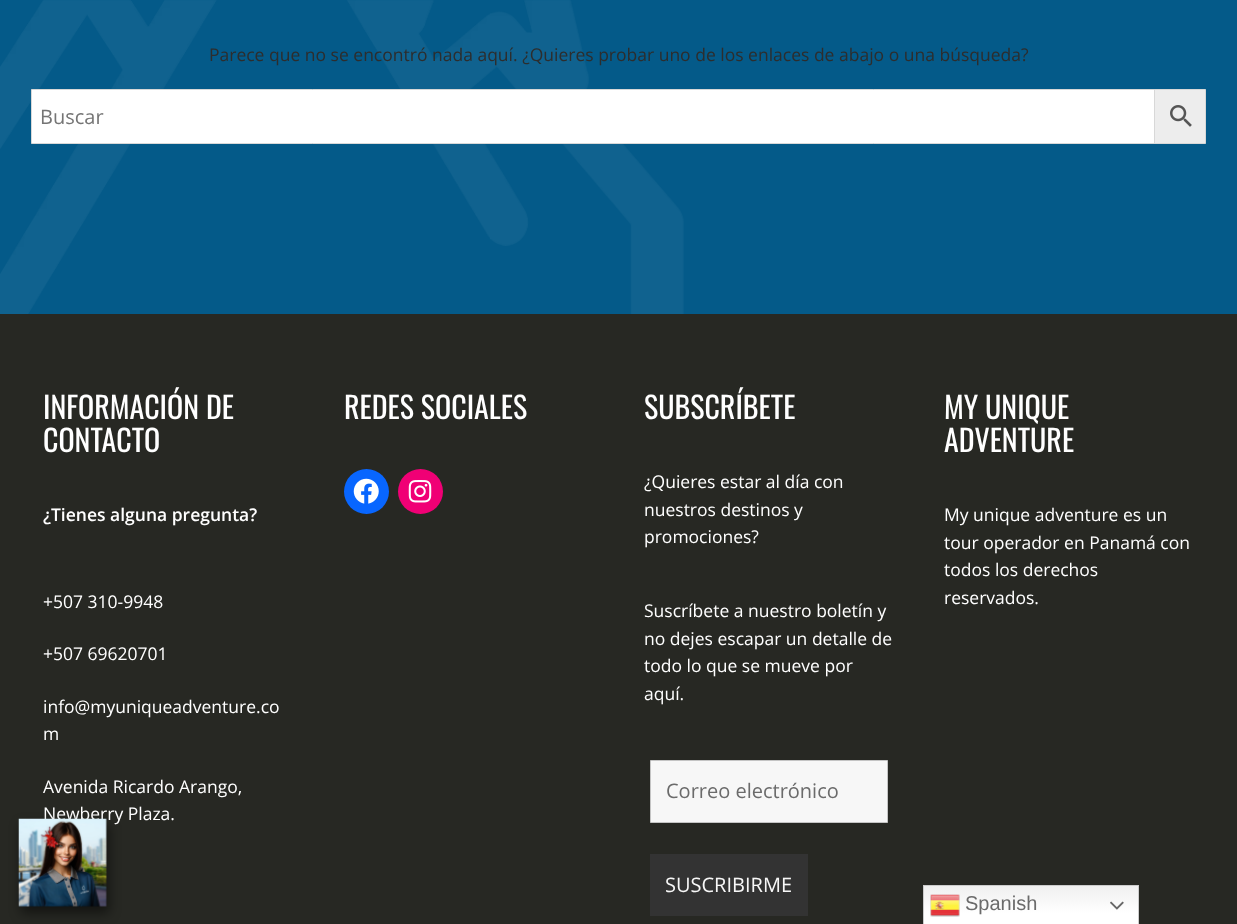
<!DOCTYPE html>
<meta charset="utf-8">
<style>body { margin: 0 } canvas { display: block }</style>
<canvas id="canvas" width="1237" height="924"></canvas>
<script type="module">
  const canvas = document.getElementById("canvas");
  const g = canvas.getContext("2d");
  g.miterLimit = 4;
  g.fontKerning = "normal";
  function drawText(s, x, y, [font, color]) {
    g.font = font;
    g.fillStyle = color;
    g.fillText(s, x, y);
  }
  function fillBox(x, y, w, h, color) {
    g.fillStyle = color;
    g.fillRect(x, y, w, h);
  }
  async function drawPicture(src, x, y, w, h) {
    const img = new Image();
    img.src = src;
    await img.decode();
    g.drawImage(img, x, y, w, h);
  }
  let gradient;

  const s1 = ["17.5px Open Sans", "#2D2D2D"];
  const s2 = ["20px Open Sans", "#757575"];
  const s3 = ["30px Oswald", "#FFFFFF"];
  const s4 = ["600 17.5px Open Sans", "#FFFFFF"];
  const s5 = ["17.5px Open Sans", "#FFFFFF"];
  const s6 = ["20px Open Sans", "#6B6B6B"];
  const s7 = ["20px Open Sans", "#F7F7F7"];
  const s8 = ["20px Liberation Sans", "#6B6B6B"];

  fillBox(0, 0, 1237, 924, "#045A89");
  await drawPicture("pic1.png", 0, 0, 684, 314);
  drawText("Parece que no se encontró nada aquí. ¿Quieres probar uno de los enlaces de abajo o una búsqueda?", 209, 61, s1);
  g.fillStyle = "#EDEDED";
  g.beginPath();
  g.rect(1154.5, 89.5, 51, 54);
  g.fill();
  g.strokeStyle = "#D8D8D8";
  g.stroke();
  g.fillStyle = "#FFFFFF";
  g.beginPath();
  g.rect(31.5, 89.5, 1123, 54);
  g.fill();
  g.stroke();
  drawText("Buscar", 40, 124, s2);
  await drawPicture("pic2.png", 1170, 105, 22, 22);
  fillBox(0, 314, 1237, 610, "#272823");
  drawText("INFORMACIÓN DE", 43, 419, s3);
  drawText("CONTACTO", 43, 452, s3);
  drawText("¿Tienes alguna pregunta?", 43, 521, s4);
  drawText("+507 310-9948", 43, 608, s5);
  drawText("+507 69620701", 43, 660, s5);
  drawText("info@myuniqueadventure.co", 43, 713, s5);
  drawText("m", 43, 740, s5);
  drawText("Avenida Ricardo Arango,", 43, 793, s5);
  drawText("Newberry Plaza.", 43, 820, s5);
  drawText("REDES SOCIALES", 344, 419, s3);
  g.fillStyle = "#0866FF";
  g.beginPath();
  g.arc(366.5, 491.5, 22.5, 0, Math.PI * 2);
  g.fill();
  await drawPicture("pic3.png", 353, 478, 26, 26);
  g.fillStyle = "#F00075";
  g.beginPath();
  g.arc(420.5, 491.5, 22.5, 0, Math.PI * 2);
  g.fill();
  await drawPicture("pic4.png", 408, 480, 24, 23);
  drawText("SUBSCRÍBETE", 644, 419, s3);
  drawText("¿Quieres estar al día con", 644, 488, s5);
  drawText("nuestros destinos y", 644, 516, s5);
  drawText("promociones?", 644, 543, s5);
  drawText("Suscríbete a nuestro boletín y", 644, 617, s5);
  drawText("no dejes escapar un detalle de", 644, 645, s5);
  drawText("todo lo que se mueve por", 644, 672, s5);
  drawText("aquí.", 644, 700, s5);
  g.fillStyle = "#F7F7F7";
  g.beginPath();
  g.rect(650.5, 760.5, 237, 62);
  g.fill();
  g.strokeStyle = "#C4C4C4";
  g.stroke();
  drawText("Correo electrónico", 666, 798, s6);
  fillBox(650, 854, 158, 62, "#333333");
  drawText("SUSCRIBIRME", 665, 892, s7);
  drawText("MY UNIQUE", 944, 419, s3);
  drawText("ADVENTURE", 944, 452, s3);
  drawText("My unique adventure es un", 944, 521, s5);
  drawText("tour operador en Panamá con", 944, 549, s5);
  drawText("todos los derechos", 944, 576, s5);
  drawText("reservados.", 944, 604, s5);
  g.fillStyle = "rgba(0, 0, 0, 0.5)";
  g.filter = "blur(6px)";
  g.beginPath();
  g.rect(21, 825, 88, 88);
  g.fill();
  g.filter = "none";
  await drawPicture("pic5.png", 18, 818, 89, 89);
  gradient = g.createLinearGradient(1031, 885, 1031, 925);
  gradient.addColorStop(0, "#EFEFEF");
  gradient.addColorStop(0.7, "#FFFFFF");
  g.fillStyle = gradient;
  g.fillRect(924, 886, 214, 38);
  g.strokeStyle = "#CCCCCC";
  g.strokeRect(923.5, 885.5, 215, 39);
  await drawPicture("pic6.png", 930, 894, 30, 23);
  drawText("Spanish", 965, 910, s8);
  await drawPicture("pic7.png", 1110, 901, 14, 9);
</script>
